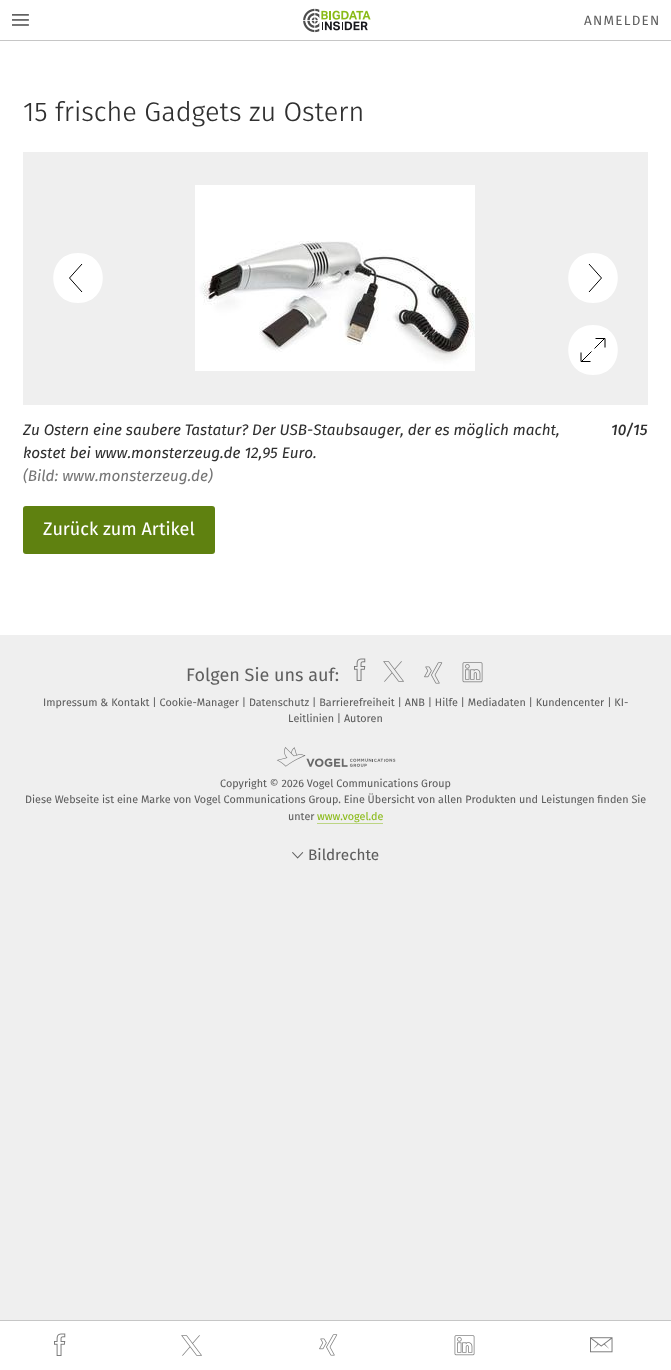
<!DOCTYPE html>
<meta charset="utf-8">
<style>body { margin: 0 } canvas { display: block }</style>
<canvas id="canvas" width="671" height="1370"></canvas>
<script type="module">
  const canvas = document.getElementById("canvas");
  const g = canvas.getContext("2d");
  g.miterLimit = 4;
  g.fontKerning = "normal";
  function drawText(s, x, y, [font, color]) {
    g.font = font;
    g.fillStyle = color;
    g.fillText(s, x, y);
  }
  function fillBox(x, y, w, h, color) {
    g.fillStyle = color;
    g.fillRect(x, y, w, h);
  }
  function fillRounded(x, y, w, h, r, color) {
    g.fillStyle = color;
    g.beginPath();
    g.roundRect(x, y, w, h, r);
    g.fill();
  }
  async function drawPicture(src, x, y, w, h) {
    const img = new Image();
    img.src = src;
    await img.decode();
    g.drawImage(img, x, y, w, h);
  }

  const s1 = ["13.5px 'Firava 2'", "#5E5E5E"];
  const s2 = ["300 27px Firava", "#303030"];
  const s3 = ["italic 15.3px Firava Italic", "#303030"];
  const s4 = ["italic 15.3px Firava Italic", "#767676"];
  const s5 = ["italic 500 15.3px Firava Italic", "#303030"];
  const s6 = ["18px Firava", "#FFFFFF"];
  const s7 = ["18px 'Firava 2'", "#5E5E5E"];
  const s8 = ["10.8px Firava", "#5E5E5E"];
  const s9 = ["10.8px Firava", "#89BA17"];
  const s10 = ["15.3px Firava", "#5E5E5E"];

  fillBox(0, 0, 671, 1370, "#EFEFEF");
  fillBox(0, 41, 671, 594, "#FFFFFF");
  fillBox(0, 0, 671, 40, "#FFFFFF");
  fillBox(0, 40, 671, 1, "#C6C6C6");
  await drawPicture("pic1.png", 12, 14, 17, 12);
  await drawPicture("pic2.png", 303, 8, 68, 25);
  g.letterSpacing = "1.25px";
  drawText("ANMELDEN", 584, 25, s1);
  g.letterSpacing = "0px";
  drawText("15 frische Gadgets zu Ostern", 23, 121, s2);
  fillBox(23, 152, 625, 253, "#EFEFEF");
  g.fillStyle = "#FFFFFF";
  g.beginPath();
  g.moveTo(78, 303);
  g.bezierCurveTo(111, 303, 111, 253, 78, 253);
  g.bezierCurveTo(45, 253, 45, 303, 78, 303);
  g.fill();
  g.beginPath();
  g.moveTo(82, 264);
  g.lineTo(69.5, 278);
  g.lineTo(82, 292);
  g.strokeStyle = "#000000";
  g.stroke();
  await drawPicture("pic3.png", 195, 185, 280, 186);
  g.beginPath();
  g.moveTo(593, 253);
  g.bezierCurveTo(560, 253, 560, 303, 593, 303);
  g.bezierCurveTo(626, 303, 626, 253, 593, 253);
  g.fill();
  g.beginPath();
  g.moveTo(589, 292);
  g.lineTo(601.5, 278);
  g.lineTo(589, 264);
  g.stroke();
  g.beginPath();
  g.moveTo(593, 375);
  g.bezierCurveTo(626, 375, 626, 325, 593, 325);
  g.bezierCurveTo(560, 325, 560, 375, 593, 375);
  g.fill();
  g.beginPath();
  g.moveTo(605, 347.5);
  g.lineTo(605, 338.5);
  g.lineTo(595.5, 338.5);
  g.moveTo(581, 352.5);
  g.lineTo(581, 361.5);
  g.lineTo(590.5, 361.5);
  g.moveTo(604.5, 338.5);
  g.lineTo(594.5, 348.5);
  g.moveTo(591.5, 351.5);
  g.lineTo(581.5, 361.5);
  g.stroke();
  drawText("Zu Ostern eine saubere Tastatur? Der USB-Staubsauger, der es möglich macht,", 23, 435, s3);
  drawText("kostet bei www.monsterzeug.de 12,95 Euro.", 23, 458, s3);
  drawText("(Bild: www.monsterzeug.de)", 23, 481, s4);
  drawText("10/15", 611, 435, s5);
  fillRounded(23, 506, 192, 48, 3, "#5F8110");
  drawText("Zurück zum Artikel", 43, 535, s6);
  fillBox(0, 1321, 671, 49, "#FFFFFF");
  fillBox(0, 1320, 671, 1, "#C6C6C6");
  await drawPicture("pic4.png", 54, 1333, 12, 23);
  await drawPicture("pic5.png", 181, 1335, 21, 21);
  await drawPicture("pic6.png", 319, 1334, 19, 22);
  await drawPicture("pic7.png", 454, 1335, 21, 21);
  await drawPicture("pic8.png", 590, 1337, 23, 16);
  drawText("Folgen Sie uns auf:", 186, 681, s7);
  await drawPicture("pic9.png", 354, 658, 12, 23);
  await drawPicture("pic10.png", 383, 661, 21, 21);
  await drawPicture("pic11.png", 424, 662, 19, 22);
  await drawPicture("pic12.png", 462, 662, 21, 21);
  drawText("Impressum & Kontakt | Cookie-Manager | Datenschutz | Barrierefreiheit | ANB | Hilfe | Mediadaten | Kundencenter | KI-", 43, 706, s8);
  drawText("Leitlinien | Autoren", 288, 722, s8);
  await drawPicture("pic13.png", 276, 747, 120, 20);
  drawText("Copyright © 2026 Vogel Communications Group", 220, 787, s8);
  drawText("Diese Webseite ist eine Marke von Vogel Communications Group. Eine Übersicht von allen Produkten und Leistungen finden Sie", 25, 803, s8);
  drawText("unter", 288, 820, s8);
  drawText("www.vogel.de", 317, 820, s9);
  fillBox(317, 823, 66, 1, "#BCD583");
  await drawPicture("pic14.png", 292, 852, 12, 7);
  drawText("Bildrechte", 308, 860, s10);
</script>
